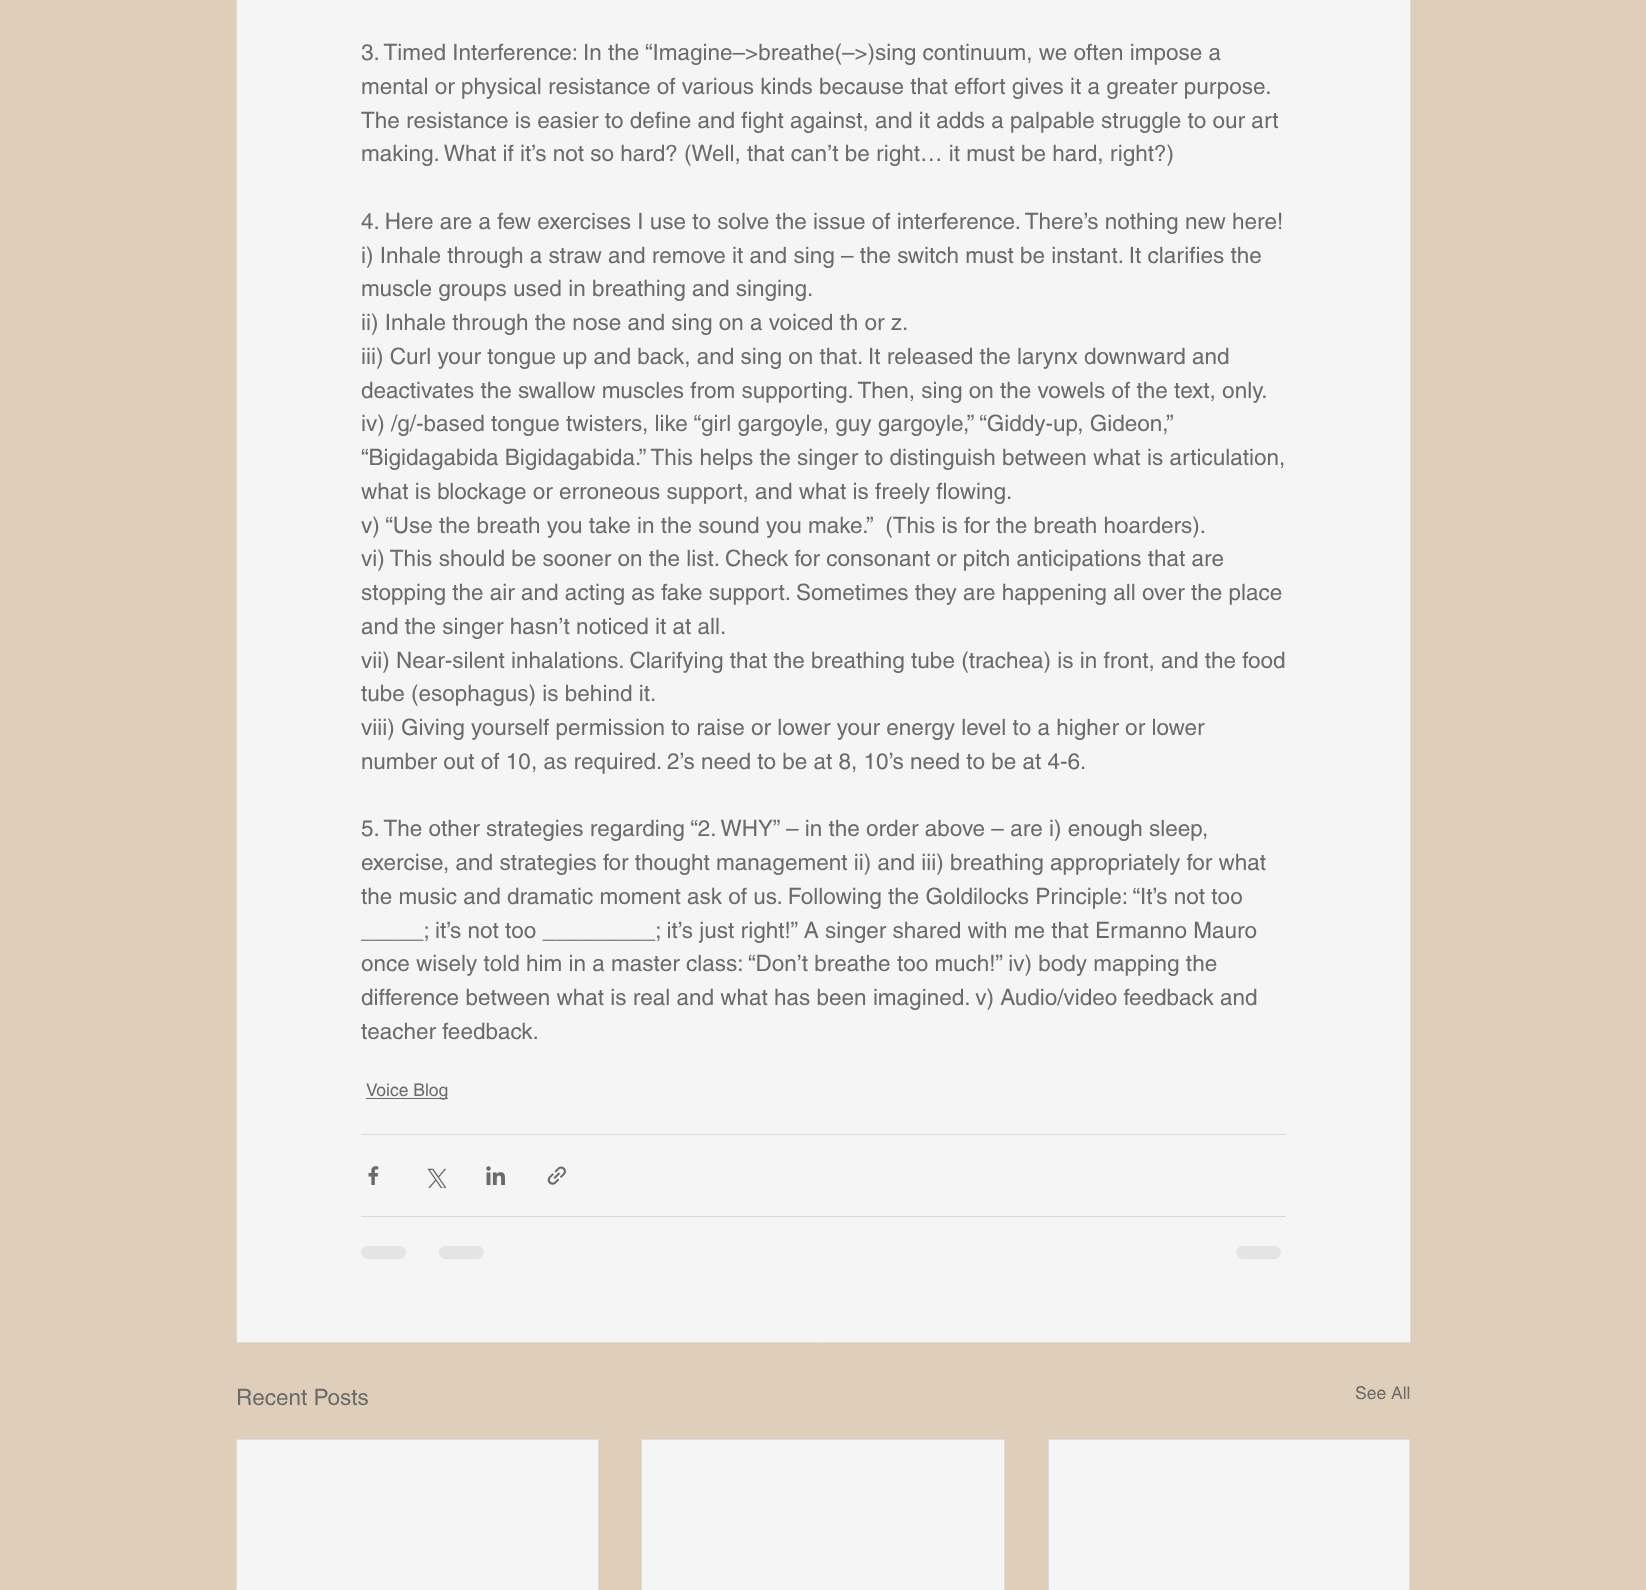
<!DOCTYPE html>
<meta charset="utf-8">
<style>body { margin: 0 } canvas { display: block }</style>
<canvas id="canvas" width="1646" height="1590"></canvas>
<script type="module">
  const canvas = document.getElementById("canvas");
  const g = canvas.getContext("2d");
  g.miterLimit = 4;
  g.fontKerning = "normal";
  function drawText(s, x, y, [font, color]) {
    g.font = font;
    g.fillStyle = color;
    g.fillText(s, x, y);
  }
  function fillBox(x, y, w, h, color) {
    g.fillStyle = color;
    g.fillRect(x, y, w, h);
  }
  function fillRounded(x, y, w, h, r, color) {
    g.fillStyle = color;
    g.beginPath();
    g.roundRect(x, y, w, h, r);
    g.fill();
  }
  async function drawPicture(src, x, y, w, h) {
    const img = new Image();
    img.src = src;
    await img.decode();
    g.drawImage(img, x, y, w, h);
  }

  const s1 = ["22.5px helvetica", "#6B6B6B"];
  const s2 = ["17.5px helvetica", "#6B6B6B"];

  fillBox(0, 0, 1646, 1590, "#DFCFBA");
  g.fillStyle = "#F5F5F5";
  g.beginPath();
  g.rect(236.5, -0.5, 1174, 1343);
  g.fill();
  g.strokeStyle = "#DCDCDC";
  g.stroke();
  drawText("3. Timed Interference: In the “Imagine–>breathe(–>)sing continuum, we often impose a", 361, 60, s1);
  drawText("mental or physical resistance of various kinds because that effort gives it a greater purpose.", 361, 94, s1);
  drawText("The resistance is easier to define and fight against, and it adds a palpable struggle to our art", 361, 128, s1);
  drawText("making. What if it’s not so hard? (Well, that can’t be right… it must be hard, right?)", 361, 161, s1);
  drawText("4. Here are a few exercises I use to solve the issue of interference. There’s nothing new here!", 361, 229, s1);
  drawText("i) Inhale through a straw and remove it and sing – the switch must be instant. It clarifies the", 361, 263, s1);
  drawText("muscle groups used in breathing and singing.", 361, 296, s1);
  drawText("ii) Inhale through the nose and sing on a voiced th or z.", 361, 330, s1);
  drawText("iii) Curl your tongue up and back, and sing on that. It released the larynx downward and", 361, 364, s1);
  drawText("deactivates the swallow muscles from supporting. Then, sing on the vowels of the text, only.", 361, 398, s1);
  drawText("iv) /g/-based tongue twisters, like “girl gargoyle, guy gargoyle,” “Giddy-up, Gideon,”", 361, 431, s1);
  drawText("“Bigidagabida Bigidagabida.” This helps the singer to distinguish between what is articulation,", 361, 465, s1);
  drawText("what is blockage or erroneous support, and what is freely flowing.", 361, 499, s1);
  drawText("v) “Use the breath you take in the sound you make.”  (This is for the breath hoarders).", 361, 533, s1);
  drawText("vi) This should be sooner on the list. Check for consonant or pitch anticipations that are", 361, 566, s1);
  drawText("stopping the air and acting as fake support. Sometimes they are happening all over the place", 361, 600, s1);
  drawText("and the singer hasn’t noticed it at all.", 361, 634, s1);
  drawText("vii) Near-silent inhalations. Clarifying that the breathing tube (trachea) is in front, and the food", 361, 668, s1);
  drawText("tube (esophagus) is behind it.", 361, 701, s1);
  drawText("viii) Giving yourself permission to raise or lower your energy level to a higher or lower", 361, 735, s1);
  drawText("number out of 10, as required. 2’s need to be at 8, 10’s need to be at 4-6.", 361, 769, s1);
  drawText("5. The other strategies regarding “2. WHY” – in the order above – are i) enough sleep,", 361, 836, s1);
  drawText("exercise, and strategies for thought management ii) and iii) breathing appropriately for what", 361, 870, s1);
  drawText("the music and dramatic moment ask of us. Following the Goldilocks Principle: “It’s not too", 361, 904, s1);
  drawText("_____; it’s not too _________; it’s just right!” A singer shared with me that Ermanno Mauro", 361, 938, s1);
  drawText("once wisely told him in a master class: “Don’t breathe too much!” iv) body mapping the", 361, 971, s1);
  drawText("difference between what is real and what has been imagined. v) Audio/video feedback and", 361, 1005, s1);
  drawText("teacher feedback.", 361, 1039, s1);
  fillBox(366, 1098, 82, 1, "#6B6B6B");
  drawText("Voice Blog", 366, 1096, s2);
  fillBox(361, 1134, 925, 1, "#D9D9D9");
  await drawPicture("pic1.png", 368, 1166, 11, 19);
  await drawPicture("pic2.png", 427, 1168, 19, 20);
  await drawPicture("pic3.png", 486, 1166, 19, 19);
  await drawPicture("pic4.png", 547, 1166, 19, 19);
  fillBox(361, 1216, 925, 1, "#D9D9D9");
  fillRounded(361, 1246, 45, 13, 6.5, "#E4E4E4");
  fillRounded(439, 1246, 45, 13, 6.5, "#E4E4E4");
  fillRounded(1236, 1246, 45, 13, 6.5, "#E4E4E4");
  drawText("Recent Posts", 236, 1405, s1);
  drawText("See All", 1355, 1399, s2);
  g.fillStyle = "#F5F5F5";
  g.beginPath();
  g.rect(236.5, 1439.5, 362, 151);
  g.fill();
  g.stroke();
  g.beginPath();
  g.rect(641.5, 1439.5, 363, 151);
  g.fill();
  g.stroke();
  g.beginPath();
  g.rect(1048.5, 1439.5, 361, 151);
  g.fill();
  g.stroke();
</script>
